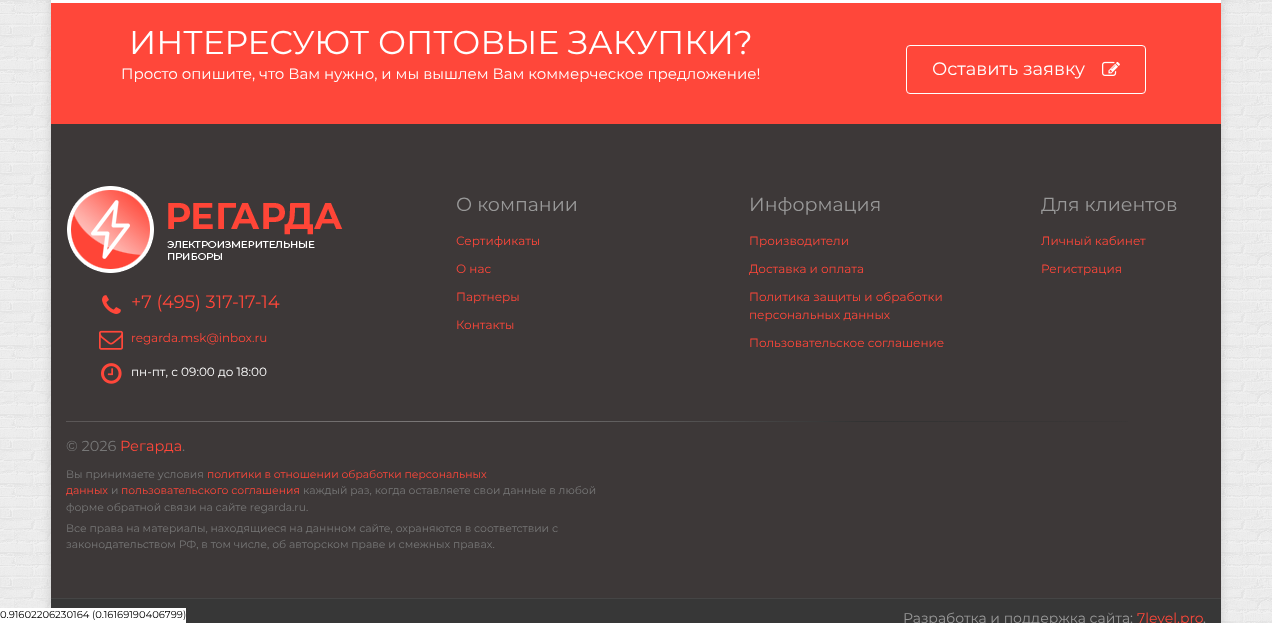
<!DOCTYPE html>
<meta charset="utf-8">
<style>body { margin: 0 } canvas { display: block }</style>
<canvas id="canvas" width="1272" height="623"></canvas>
<script type="module">
  const canvas = document.getElementById("canvas");
  const g = canvas.getContext("2d");
  g.miterLimit = 4;
  g.fontKerning = "normal";
  function drawText(s, x, y, [font, color]) {
    g.font = font;
    g.fillStyle = color;
    g.fillText(s, x, y);
  }
  function fillBox(x, y, w, h, color) {
    g.fillStyle = color;
    g.fillRect(x, y, w, h);
  }
  async function drawPicture(src, x, y, w, h) {
    const img = new Image();
    img.src = src;
    await img.decode();
    g.drawImage(img, x, y, w, h);
  }
  let gradient;

  const s1 = ["33px Montserrat", "#FFFFFF"];
  const s2 = ["15px Montserrat", "#FFFFFF"];
  const s3 = ["18px Montserrat", "#FFFFFF"];
  const s4 = ["19px Montserrat", "#999999"];
  const s5 = ["12px Montserrat", "#FF473A"];
  const s6 = ["18px Montserrat", "#FF473A"];
  const s7 = ["12px Montserrat", "#FFFFFF"];
  const s8 = ["14.5px Montserrat", "#777777"];
  const s9 = ["14.5px Montserrat", "#FF473A"];
  const s10 = ["10.8px Montserrat", "#777777"];
  const s11 = ["10.8px Montserrat", "#FF473A"];
  const s12 = ["14px Montserrat", "#999999"];
  const s13 = ["14px Montserrat", "#FF473A"];
  const s14 = ["10px Montserrat", "#000000"];

  fillBox(0, 0, 1272, 623, "#FFFFFF");
  await drawPicture("pic1.png", 0, 0, 1272, 623);
  g.fillStyle = "#CACACA";
  g.filter = "blur(5px)";
  g.beginPath();
  g.rect(51, -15, 1170, 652);
  g.fill();
  g.filter = "none";
  fillBox(51, 0, 1170, 3, "#FFFFFF");
  fillBox(51, 3, 1170, 121, "#FF473A");
  drawText("ИНТЕРЕСУЮТ ОПТОВЫЕ ЗАКУПКИ?", 129, 54, s1);
  drawText("Просто опишите, что Вам нужно, и мы вышлем Вам коммерческое предложение!", 121, 79, s2);
  g.beginPath();
  g.roundRect(906.5, 45.5, 239, 48, 3.5);
  g.strokeStyle = "#FFFFFF";
  g.stroke();
  drawText("Оставить заявку", 932, 75, s3);
  await drawPicture("pic2.png", 1102, 61, 18, 15);
  fillBox(51, 124, 1170, 474, "#3D3838");
  drawText("О компании", 456, 211, s4);
  drawText("Сертификаты", 456, 245, s5);
  drawText("О нас", 456, 273, s5);
  drawText("Партнеры", 456, 301, s5);
  drawText("Контакты", 456, 329, s5);
  drawText("Информация", 749, 211, s4);
  drawText("Производители", 749, 245, s5);
  drawText("Доставка и оплата", 749, 273, s5);
  drawText("Политика защиты и обработки", 749, 301, s5);
  drawText("персональных данных", 749, 319, s5);
  drawText("Пользовательское соглашение", 749, 347, s5);
  drawText("Для клиентов", 1041, 211, s4);
  drawText("Личный кабинет", 1041, 245, s5);
  drawText("Регистрация", 1041, 273, s5);
  await drawPicture("pic3.png", 67, 186, 276, 87);
  await drawPicture("pic4.png", 102, 295, 19, 19);
  drawText("+7 (495) 317-17-14", 131, 308, s6);
  await drawPicture("pic5.png", 99, 330, 24, 20);
  drawText("regarda.msk@inbox.ru", 131, 342, s5);
  await drawPicture("pic6.png", 101, 363, 21, 21);
  drawText("пн-пт, с 09:00 до 18:00", 131, 376, s7);
  gradient = g.createLinearGradient(66, 422, 1206, 421);
  gradient.addColorStop(0, "#5A5656");
  gradient.addColorStop(0.35, "#7D7A7A");
  gradient.addColorStop(0.7, "#323232");
  gradient.addColorStop(1, "#3D3838");
  g.fillStyle = gradient;
  g.fillRect(66, 421, 1062, 1);
  drawText("© 2026", 66, 451, s8);
  drawText("Регарда", 120, 451, s9);
  drawText(".", 182, 451, s8);
  drawText("Вы принимаете условия", 66, 478, s10);
  drawText("политики в отношении обработки персональных", 207, 478, s11);
  drawText("данных", 66, 494, s11);
  drawText("и", 111, 494, s10);
  drawText("пользовательского соглашения", 121, 494, s11);
  drawText("каждый раз, когда оставляете свои данные в любой", 303, 494, s10);
  drawText("форме обратной связи на сайте regarda.ru.", 66, 511, s10);
  drawText("Все права на материалы, находящиеся на даннном сайте, охраняются в соответствии с", 66, 532, s10);
  drawText("законодательством РФ, в том числе, об авторском праве и смежных правах.", 66, 548, s10);
  fillBox(51, 599, 1170, 24, "#373737");
  fillBox(51, 598, 1170, 1, "#454545");
  drawText("Разработка и поддержка сайта:", 903, 623, s12);
  drawText("7level.pro", 1137, 623, s13);
  drawText(".", 1203, 623, s12);
  fillBox(0, 608, 186, 15, "#FFFFFF");
  drawText("0.91602206230164 (0.16169190406799)", 0, 618, s14);
</script>
